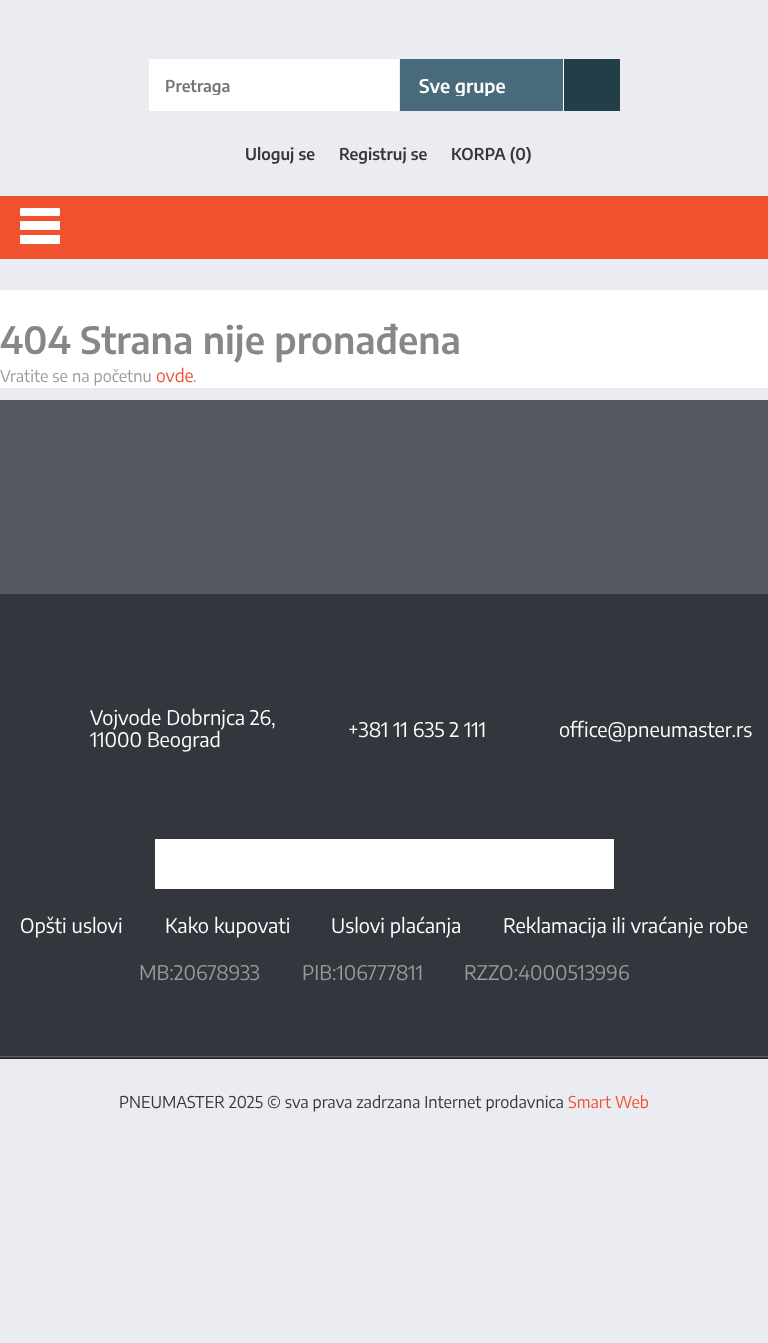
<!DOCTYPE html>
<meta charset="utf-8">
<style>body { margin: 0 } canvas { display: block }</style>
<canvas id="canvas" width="768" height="1343"></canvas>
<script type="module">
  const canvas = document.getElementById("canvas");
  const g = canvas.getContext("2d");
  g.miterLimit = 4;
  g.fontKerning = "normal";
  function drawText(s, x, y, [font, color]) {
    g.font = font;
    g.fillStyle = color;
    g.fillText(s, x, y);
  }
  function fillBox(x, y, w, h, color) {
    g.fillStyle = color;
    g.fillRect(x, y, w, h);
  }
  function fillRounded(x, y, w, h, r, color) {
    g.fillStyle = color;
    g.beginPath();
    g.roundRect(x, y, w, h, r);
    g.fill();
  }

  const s1 = ["600 16.25px Encode Sans", "#757575"];
  const s2 = ["600 18.75px Encode Sans", "#FFFFFF"];
  const s3 = ["600 16.25px Encode Sans", "#35363B"];
  const s4 = ["600 37.5px Encode Sans", "#878787"];
  const s5 = ["16.25px Encode Sans", "#9A9A9A"];
  const s6 = ["17.5px Encode Sans", "#F25130"];
  const s7 = ["20px Encode Sans", "#FFFFFF"];
  const s8 = ["20px Encode Sans", "#9A9A9A"];
  const s9 = ["16.25px Encode Sans", "#35363B"];
  const s10 = ["16.25px Encode Sans", "#F25130"];

  fillBox(0, 0, 768, 1343, "#EBECF1");
  fillBox(149, 59, 250, 52, "#FFFFFF");
  g.save();
  g.beginPath();
  g.rect(165, 75, 234, 20);
  g.clip();
  drawText("Pretraga", 165, 92, s1);
  g.restore();
  fillBox(400, 59, 163, 52, "#486A7A");
  fillBox(563, 59, 1, 52, "#FFFFFF");
  g.save();
  g.beginPath();
  g.rect(419, 74, 125, 22);
  g.clip();
  drawText("Sve grupe", 419, 93, s2);
  g.restore();
  fillBox(564, 59, 56, 52, "#233D49");
  drawText("Uloguj se", 245, 160, s3);
  drawText("Registruj se", 339, 160, s3);
  drawText("KORPA (0)", 451, 160, s3);
  fillBox(0, 196, 768, 63, "#F25130");
  fillRounded(20, 208, 40, 8, 1, "#FFFFFF");
  fillRounded(20, 221, 40, 9, 1, "#FFFFFF");
  fillRounded(20, 235, 40, 9, 1, "#FFFFFF");
  fillBox(0, 290, 768, 98, "#FFFFFF");
  drawText("404 Strana nije pronađena", 0, 354, s4);
  drawText("Vratite se na početnu", 0, 382, s5);
  drawText("ovde", 156, 382, s6);
  drawText(".", 193, 382, s5);
  fillBox(0, 400, 768, 194, "#55585F");
  fillBox(0, 594, 768, 464, "#33363D");
  drawText("Vojvode Dobrnjca 26,", 90, 725, s7);
  drawText("11000 Beograd", 90, 747, s7);
  drawText("+381 11 635 2 111", 348, 737, s7);
  drawText("office@pneumaster.rs", 559, 737, s7);
  fillBox(155, 839, 459, 50, "#FFFFFF");
  drawText("Opšti uslovi", 20, 933, s7);
  drawText("Kako kupovati", 165, 933, s7);
  drawText("Uslovi plaćanja", 331, 933, s7);
  drawText("Reklamacija ili vraćanje robe", 503, 933, s7);
  drawText("MB:20678933", 139, 980, s8);
  drawText("PIB:106777811", 302, 980, s8);
  drawText("RZZO:4000513996", 464, 980, s8);
  fillBox(0, 1056, 768, 1, "#656465");
  fillBox(0, 1058, 768, 1, "#272727");
  drawText("PNEUMASTER 2025 © sva prava zadrzana Internet prodavnica", 119, 1108, s9);
  drawText("Smart Web", 568, 1108, s10);
</script>
